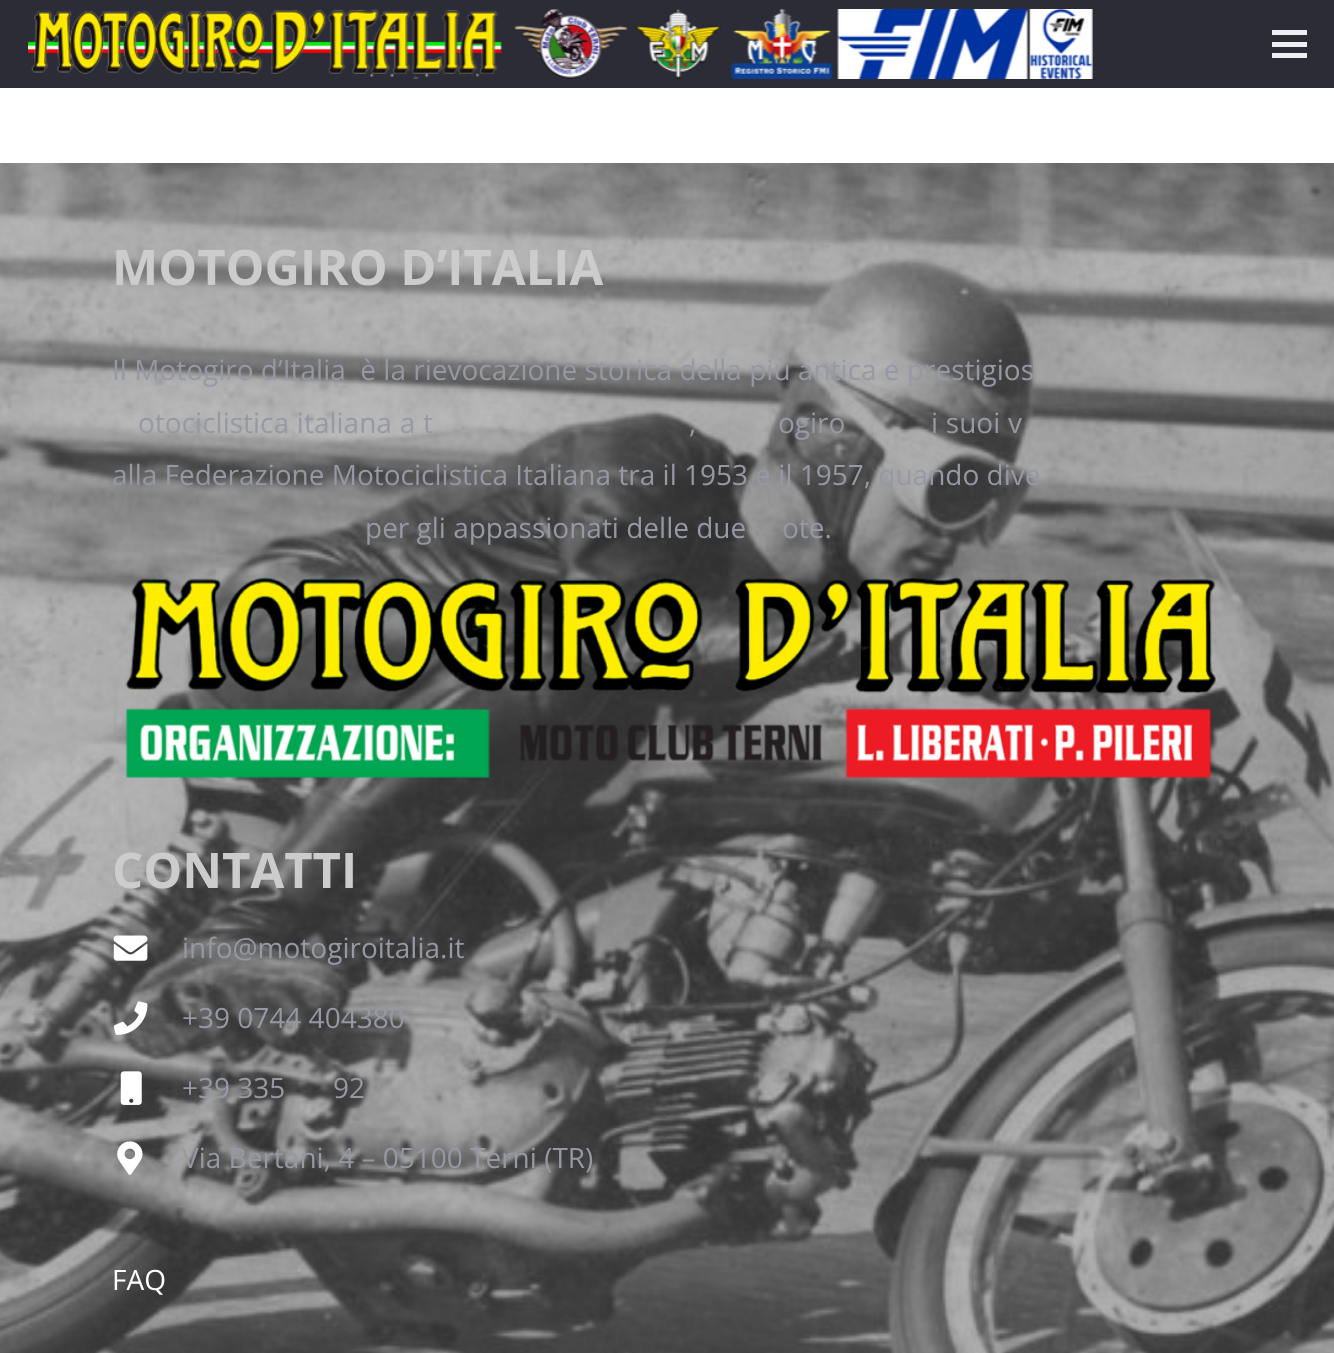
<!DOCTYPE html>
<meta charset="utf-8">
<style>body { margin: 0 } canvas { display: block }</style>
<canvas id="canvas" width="1334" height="1353"></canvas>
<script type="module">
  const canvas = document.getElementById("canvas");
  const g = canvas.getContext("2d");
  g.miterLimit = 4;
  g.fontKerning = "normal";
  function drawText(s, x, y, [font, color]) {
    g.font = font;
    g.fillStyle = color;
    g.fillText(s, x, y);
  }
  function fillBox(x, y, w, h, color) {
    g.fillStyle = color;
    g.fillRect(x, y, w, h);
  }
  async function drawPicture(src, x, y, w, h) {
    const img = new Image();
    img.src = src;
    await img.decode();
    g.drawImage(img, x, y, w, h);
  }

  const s1 = ["bold 49px Open Sans", "#CCCCCC"];
  const s2 = ["28px Open Sans", "#9698A3"];
  const s3 = ["28px Open Sans", "#FFFFFF"];

  fillBox(0, 0, 1334, 1353, "#FFFFFF");
  fillBox(0, 0, 1334, 88, "#2B2C36");
  await drawPicture("pic1.png", 28, 9, 1065, 70);
  fillBox(1272, 42, 35, 5, "#EDF0F2");
  fillBox(1272, 30, 35, 5, "#EDF0F2");
  fillBox(1272, 53, 35, 5, "#EDF0F2");
  await drawPicture("pic2.png", 0, 163, 1334, 1190);
  drawText("MOTOGIRO D’ITALIA", 112, 285, s1);
  drawText("Il Motogiro d’Italia  è la rievocazione storica della più antica e prestigios", 112, 380, s2);
  g.wordSpacing = "0.5px";
  drawText("otociclistica italiana a t", 138, 433, s2);
  drawText(",", 689, 433, s2);
  drawText("ogiro", 778, 433, s2);
  drawText("i suoi v", 931, 433, s2);
  g.wordSpacing = "0px";
  drawText("alla Federazione Motociclistica Italiana tra il 1953 e il 1957, quando dive", 112, 485, s2);
  drawText("per gli appassionati delle due", 365, 538, s2);
  drawText("ote.", 782, 538, s2);
  await drawPicture("pic3.png", 125, 577, 1091, 201);
  drawText("CONTATTI", 112, 888, s1);
  await drawPicture("pic4.png", 113, 935, 35, 26);
  drawText("info@motogiroitalia.it", 182, 958, s2);
  await drawPicture("pic5.png", 113, 1001, 35, 34);
  drawText("+39 0744 404380", 182, 1028, s2);
  await drawPicture("pic6.png", 120, 1071, 22, 34);
  drawText("+39 335", 182, 1098, s2);
  drawText("92", 333, 1098, s2);
  await drawPicture("pic7.png", 117, 1141, 26, 34);
  drawText("Via Bertani, 4 – 05100 Terni (TR)", 182, 1168, s2);
  drawText("FAQ", 112, 1290, s3);
</script>
